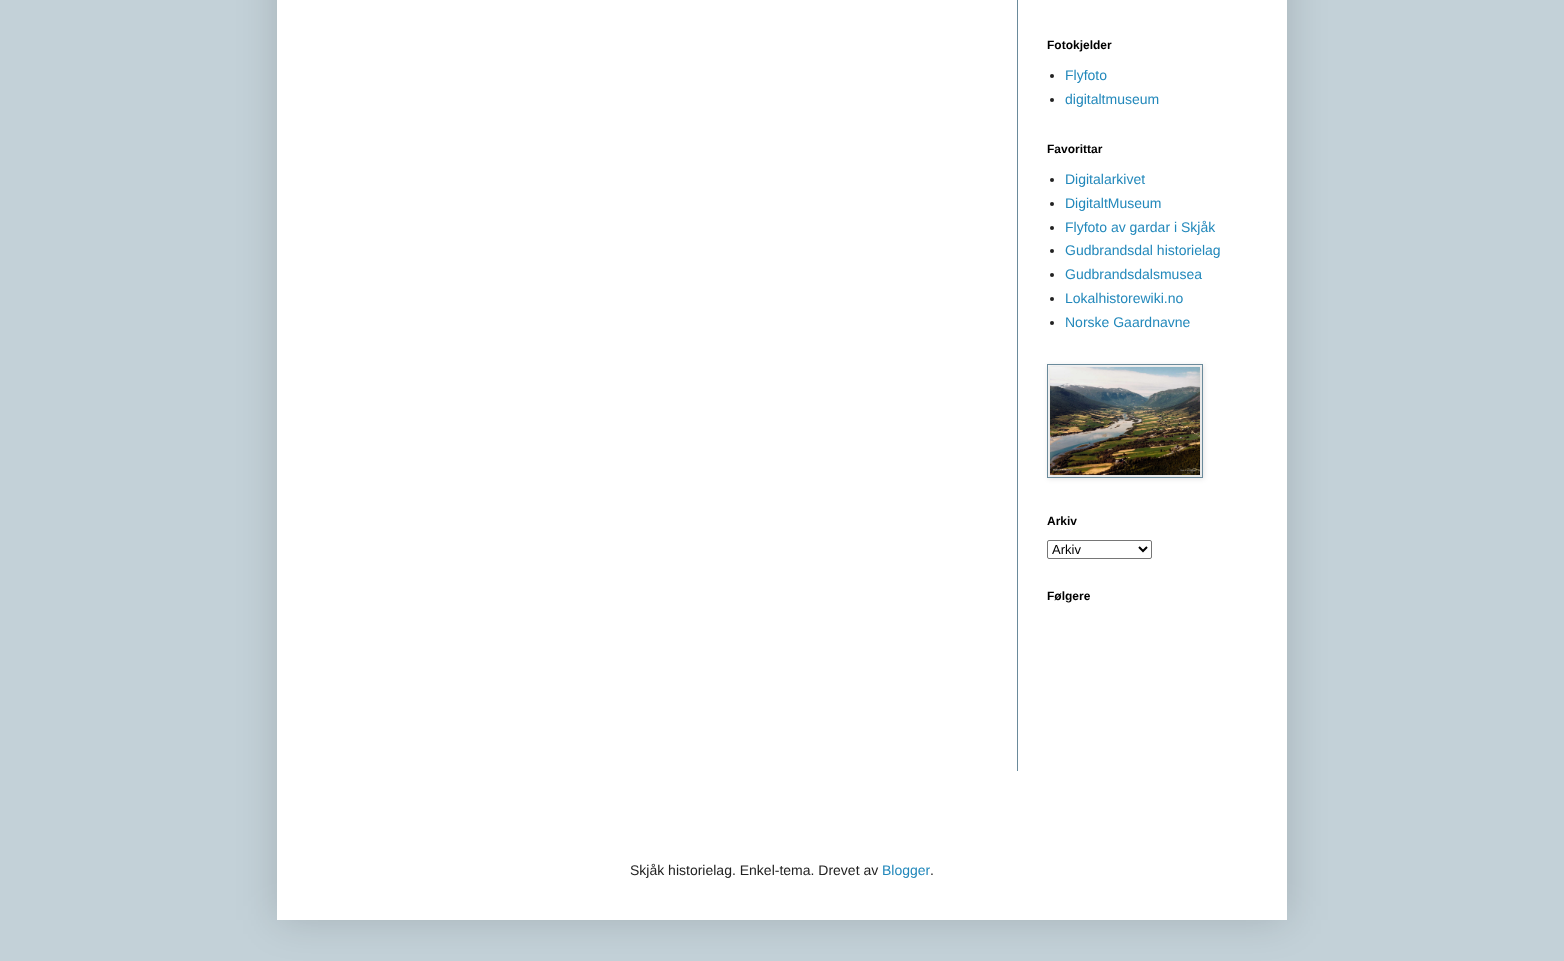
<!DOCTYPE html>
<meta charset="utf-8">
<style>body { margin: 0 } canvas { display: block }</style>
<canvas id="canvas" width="1564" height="961"></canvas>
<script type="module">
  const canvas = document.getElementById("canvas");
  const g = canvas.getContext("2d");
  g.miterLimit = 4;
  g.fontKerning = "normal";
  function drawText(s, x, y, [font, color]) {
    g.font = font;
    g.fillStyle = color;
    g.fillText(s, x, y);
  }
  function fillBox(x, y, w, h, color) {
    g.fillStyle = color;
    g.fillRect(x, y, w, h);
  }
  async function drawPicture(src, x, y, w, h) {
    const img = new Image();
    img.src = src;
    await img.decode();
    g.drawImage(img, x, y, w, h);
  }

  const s1 = ["bold 12px Liberation Sans", "#000000"];
  const s2 = ["14px Liberation Sans", "#2288BB"];
  const s3 = ["13px Liberation Sans", "#000000"];
  const s4 = ["14px Liberation Sans", "#222222"];

  fillBox(0, 0, 1564, 961, "#C3D1D8");
  g.fillStyle = "rgba(0, 0, 0, 0.15)";
  g.filter = "blur(20px)";
  g.beginPath();
  g.rect(277, -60, 1010, 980);
  g.fill();
  g.filter = "none";
  fillBox(277, 0, 1010, 920, "#FFFFFF");
  fillBox(1017, 0, 1, 771, "#6A8A9B");
  drawText("Fotokjelder", 1047, 49, s1);
  g.fillStyle = "#222222";
  g.beginPath();
  g.arc(1052, 76, 2, 0, Math.PI * 2);
  g.fill();
  drawText("Flyfoto", 1065, 80, s2);
  g.fillStyle = "#222222";
  g.beginPath();
  g.arc(1052, 100, 2, 0, Math.PI * 2);
  g.fill();
  drawText("digitaltmuseum", 1065, 104, s2);
  drawText("Favorittar", 1047, 153, s1);
  g.fillStyle = "#222222";
  g.beginPath();
  g.arc(1052, 180, 2, 0, Math.PI * 2);
  g.fill();
  drawText("Digitalarkivet", 1065, 184, s2);
  g.fillStyle = "#222222";
  g.beginPath();
  g.arc(1052, 204, 2, 0, Math.PI * 2);
  g.fill();
  drawText("DigitaltMuseum", 1065, 208, s2);
  g.fillStyle = "#222222";
  g.beginPath();
  g.arc(1052, 228, 2, 0, Math.PI * 2);
  g.fill();
  drawText("Flyfoto av gardar i Skjåk", 1065, 232, s2);
  g.fillStyle = "#222222";
  g.beginPath();
  g.arc(1052, 251, 2, 0, Math.PI * 2);
  g.fill();
  drawText("Gudbrandsdal historielag", 1065, 255, s2);
  g.fillStyle = "#222222";
  g.beginPath();
  g.arc(1052, 275, 2, 0, Math.PI * 2);
  g.fill();
  drawText("Gudbrandsdalsmusea", 1065, 279, s2);
  g.fillStyle = "#222222";
  g.beginPath();
  g.arc(1052, 299, 2, 0, Math.PI * 2);
  g.fill();
  drawText("Lokalhistorewiki.no", 1065, 303, s2);
  g.fillStyle = "#222222";
  g.beginPath();
  g.arc(1052, 323, 2, 0, Math.PI * 2);
  g.fill();
  drawText("Norske Gaardnavne", 1065, 327, s2);
  g.fillStyle = "rgba(0, 0, 0, 0.1)";
  g.filter = "blur(2.5px)";
  g.beginPath();
  g.rect(1048, 365, 156, 114);
  g.fill();
  g.filter = "none";
  g.strokeStyle = "#6A8A9B";
  g.strokeRect(1047.5, 364.5, 155, 113);
  await drawPicture("pic1.png", 1050, 367, 150, 108);
  drawText("Arkiv", 1047, 525, s1);
  g.beginPath();
  g.roundRect(1047.5, 540.5, 104, 18, 1.5);
  g.strokeStyle = "#767676";
  g.stroke();
  g.beginPath();
  g.moveTo(1139, 547);
  g.lineTo(1143, 551);
  g.lineTo(1147, 547);
  g.strokeStyle = "#000000";
  g.lineWidth = 2;
  g.stroke();
  drawText("Arkiv", 1052, 554, s3);
  drawText("Følgere", 1047, 600, s1);
  drawText("Skjåk historielag. Enkel-tema. Drevet av", 630, 875, s4);
  drawText("Blogger", 882, 875, s2);
  drawText(".", 930, 875, s4);
</script>
